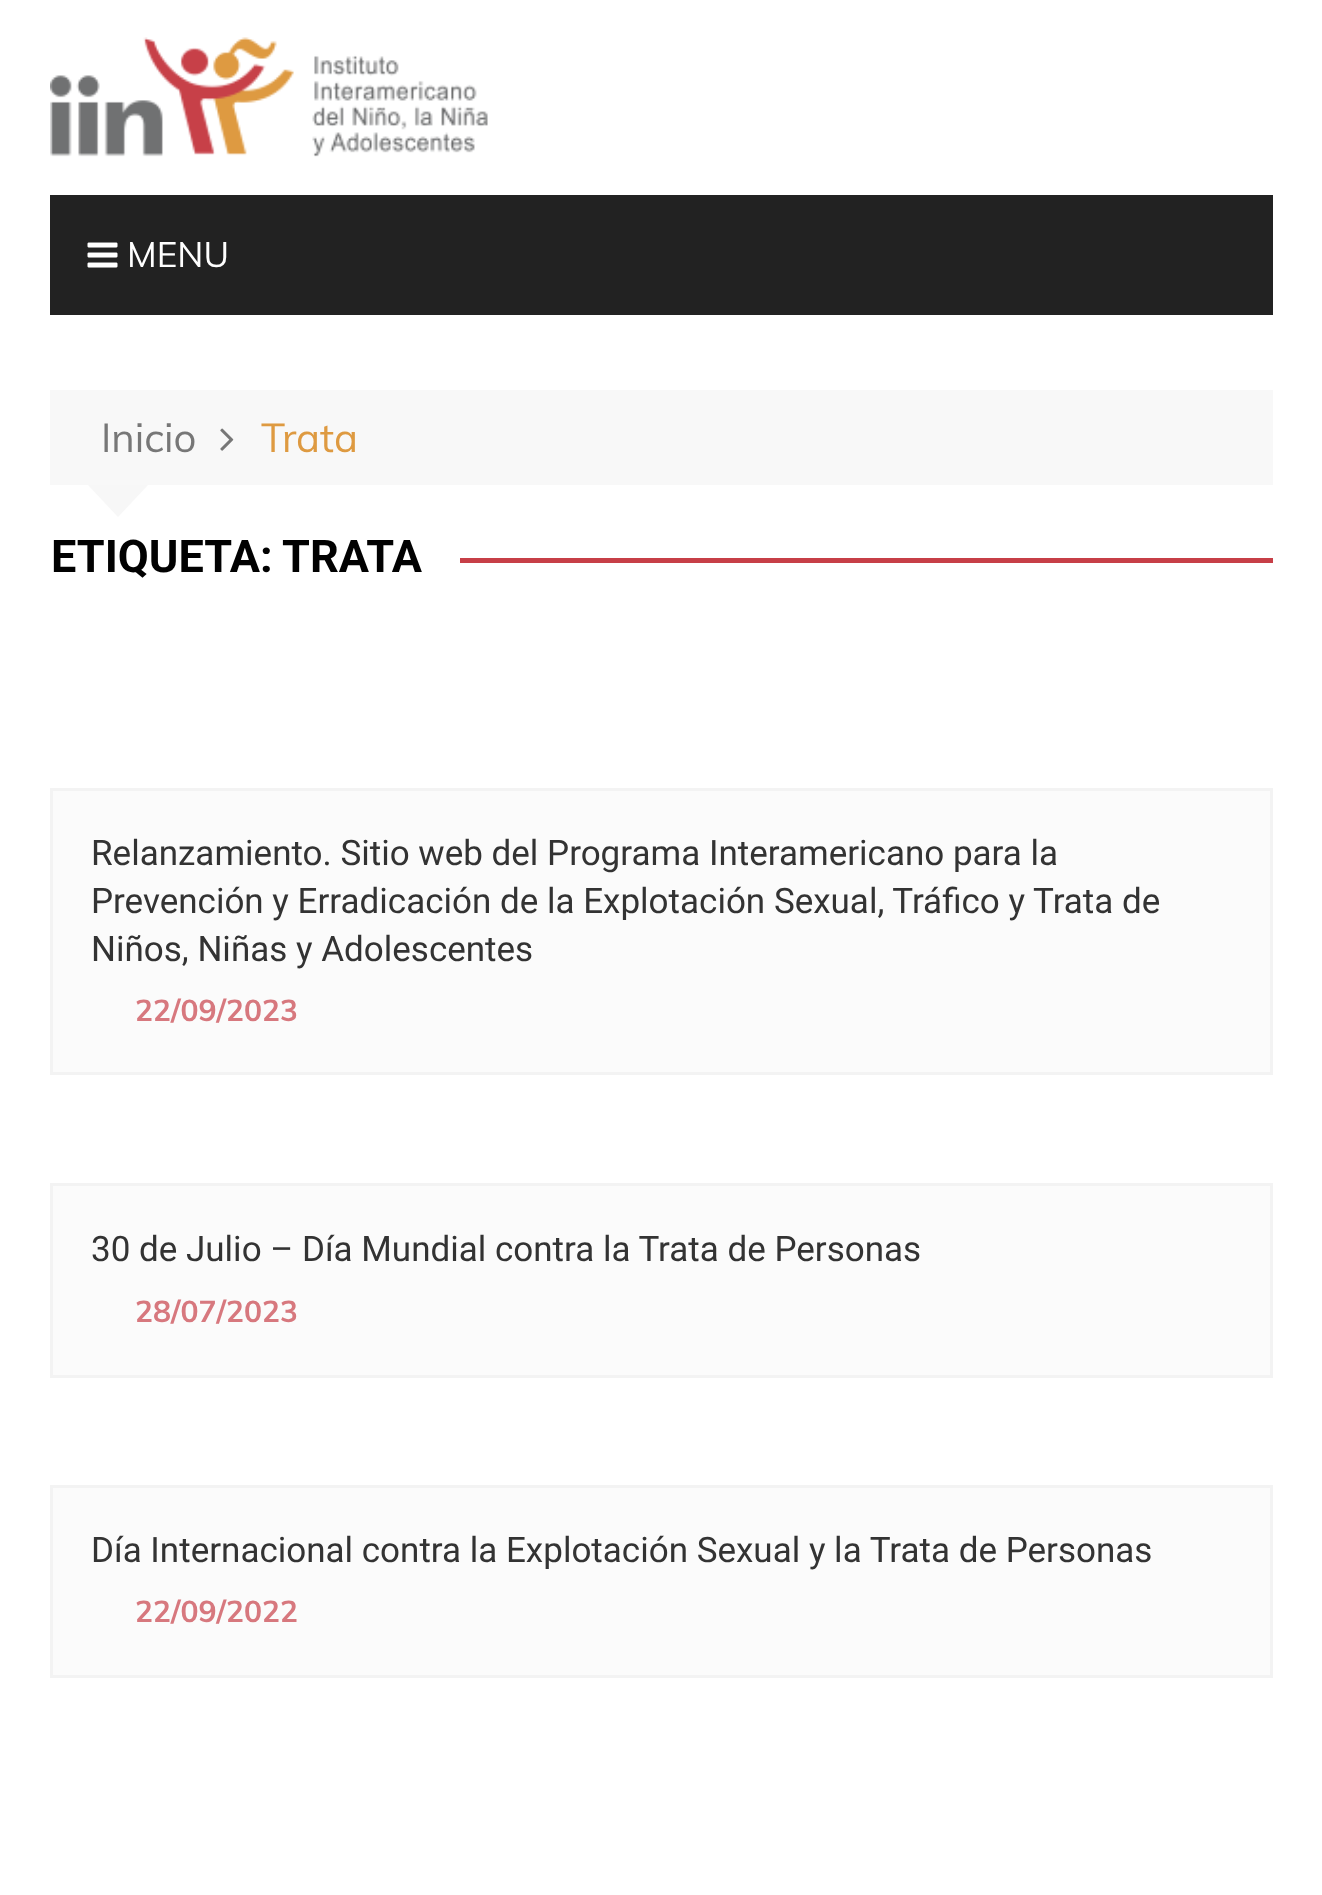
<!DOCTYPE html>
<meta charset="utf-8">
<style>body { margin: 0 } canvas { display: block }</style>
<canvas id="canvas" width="1322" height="1895"></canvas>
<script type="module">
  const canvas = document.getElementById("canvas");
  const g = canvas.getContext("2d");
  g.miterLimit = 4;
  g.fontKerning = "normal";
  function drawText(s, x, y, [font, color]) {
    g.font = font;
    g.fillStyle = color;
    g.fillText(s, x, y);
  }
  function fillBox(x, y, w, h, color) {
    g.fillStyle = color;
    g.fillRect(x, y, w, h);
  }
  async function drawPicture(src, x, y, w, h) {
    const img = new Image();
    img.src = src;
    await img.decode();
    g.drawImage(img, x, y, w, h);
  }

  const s1 = ["35px Muli", "#FFFFFF"];
  const s2 = ["40px Muli", "#777777"];
  const s3 = ["40px Muli", "#DE9A41"];
  const s4 = ["bold 45px Roboto", "#010101"];
  const s5 = ["35px Roboto", "#333333"];
  const s6 = ["bold 30px Muli", "#D7787E"];

  fillBox(0, 0, 1322, 1895, "#FFFFFF");
  await drawPicture("pic1.png", 50, 37, 438, 120);
  fillBox(50, 195, 1223, 120, "#222222");
  await drawPicture("pic2.png", 87, 242, 31, 26);
  drawText("MENU", 127, 267, s1);
  fillBox(50, 390, 1223, 95, "#F8F8F8");
  drawText("Inicio", 101, 452, s2);
  await drawPicture("pic3.png", 220, 428, 14, 23);
  drawText("Trata", 261, 452, s3);
  g.fillStyle = "#F7F7F7";
  g.beginPath();
  g.moveTo(88, 485);
  g.lineTo(148, 485);
  g.lineTo(118, 517);
  g.closePath();
  g.fill();
  drawText("ETIQUETA:", 51, 572, s4);
  drawText("TRATA", 282, 572, s4);
  fillBox(460, 558, 813, 5, "#C73F47");
  g.fillStyle = "#FBFBFB";
  g.beginPath();
  g.rect(51.5, 789.5, 1220, 284);
  g.fill();
  g.strokeStyle = "#F3F3F3";
  g.lineWidth = 3;
  g.stroke();
  drawText("Relanzamiento. Sitio web del Programa Interamericano para la", 91, 865, s5);
  drawText("Prevención y Erradicación de la Explotación Sexual, Tráfico y Trata de", 91, 913, s5);
  drawText("Niños, Niñas y Adolescentes", 91, 961, s5);
  drawText("22/09/2023", 135, 1021, s6);
  g.fillStyle = "#FBFBFB";
  g.beginPath();
  g.rect(51.5, 1184.5, 1220, 192);
  g.fill();
  g.stroke();
  drawText("30 de Julio – Día Mundial contra la Trata de Personas", 91, 1261, s5);
  drawText("28/07/2023", 135, 1322, s6);
  g.fillStyle = "#FBFBFB";
  g.beginPath();
  g.rect(51.5, 1486.5, 1220, 190);
  g.fill();
  g.stroke();
  drawText("Día Internacional contra la Explotación Sexual y la Trata de Personas", 91, 1562, s5);
  drawText("22/09/2022", 135, 1622, s6);
</script>
